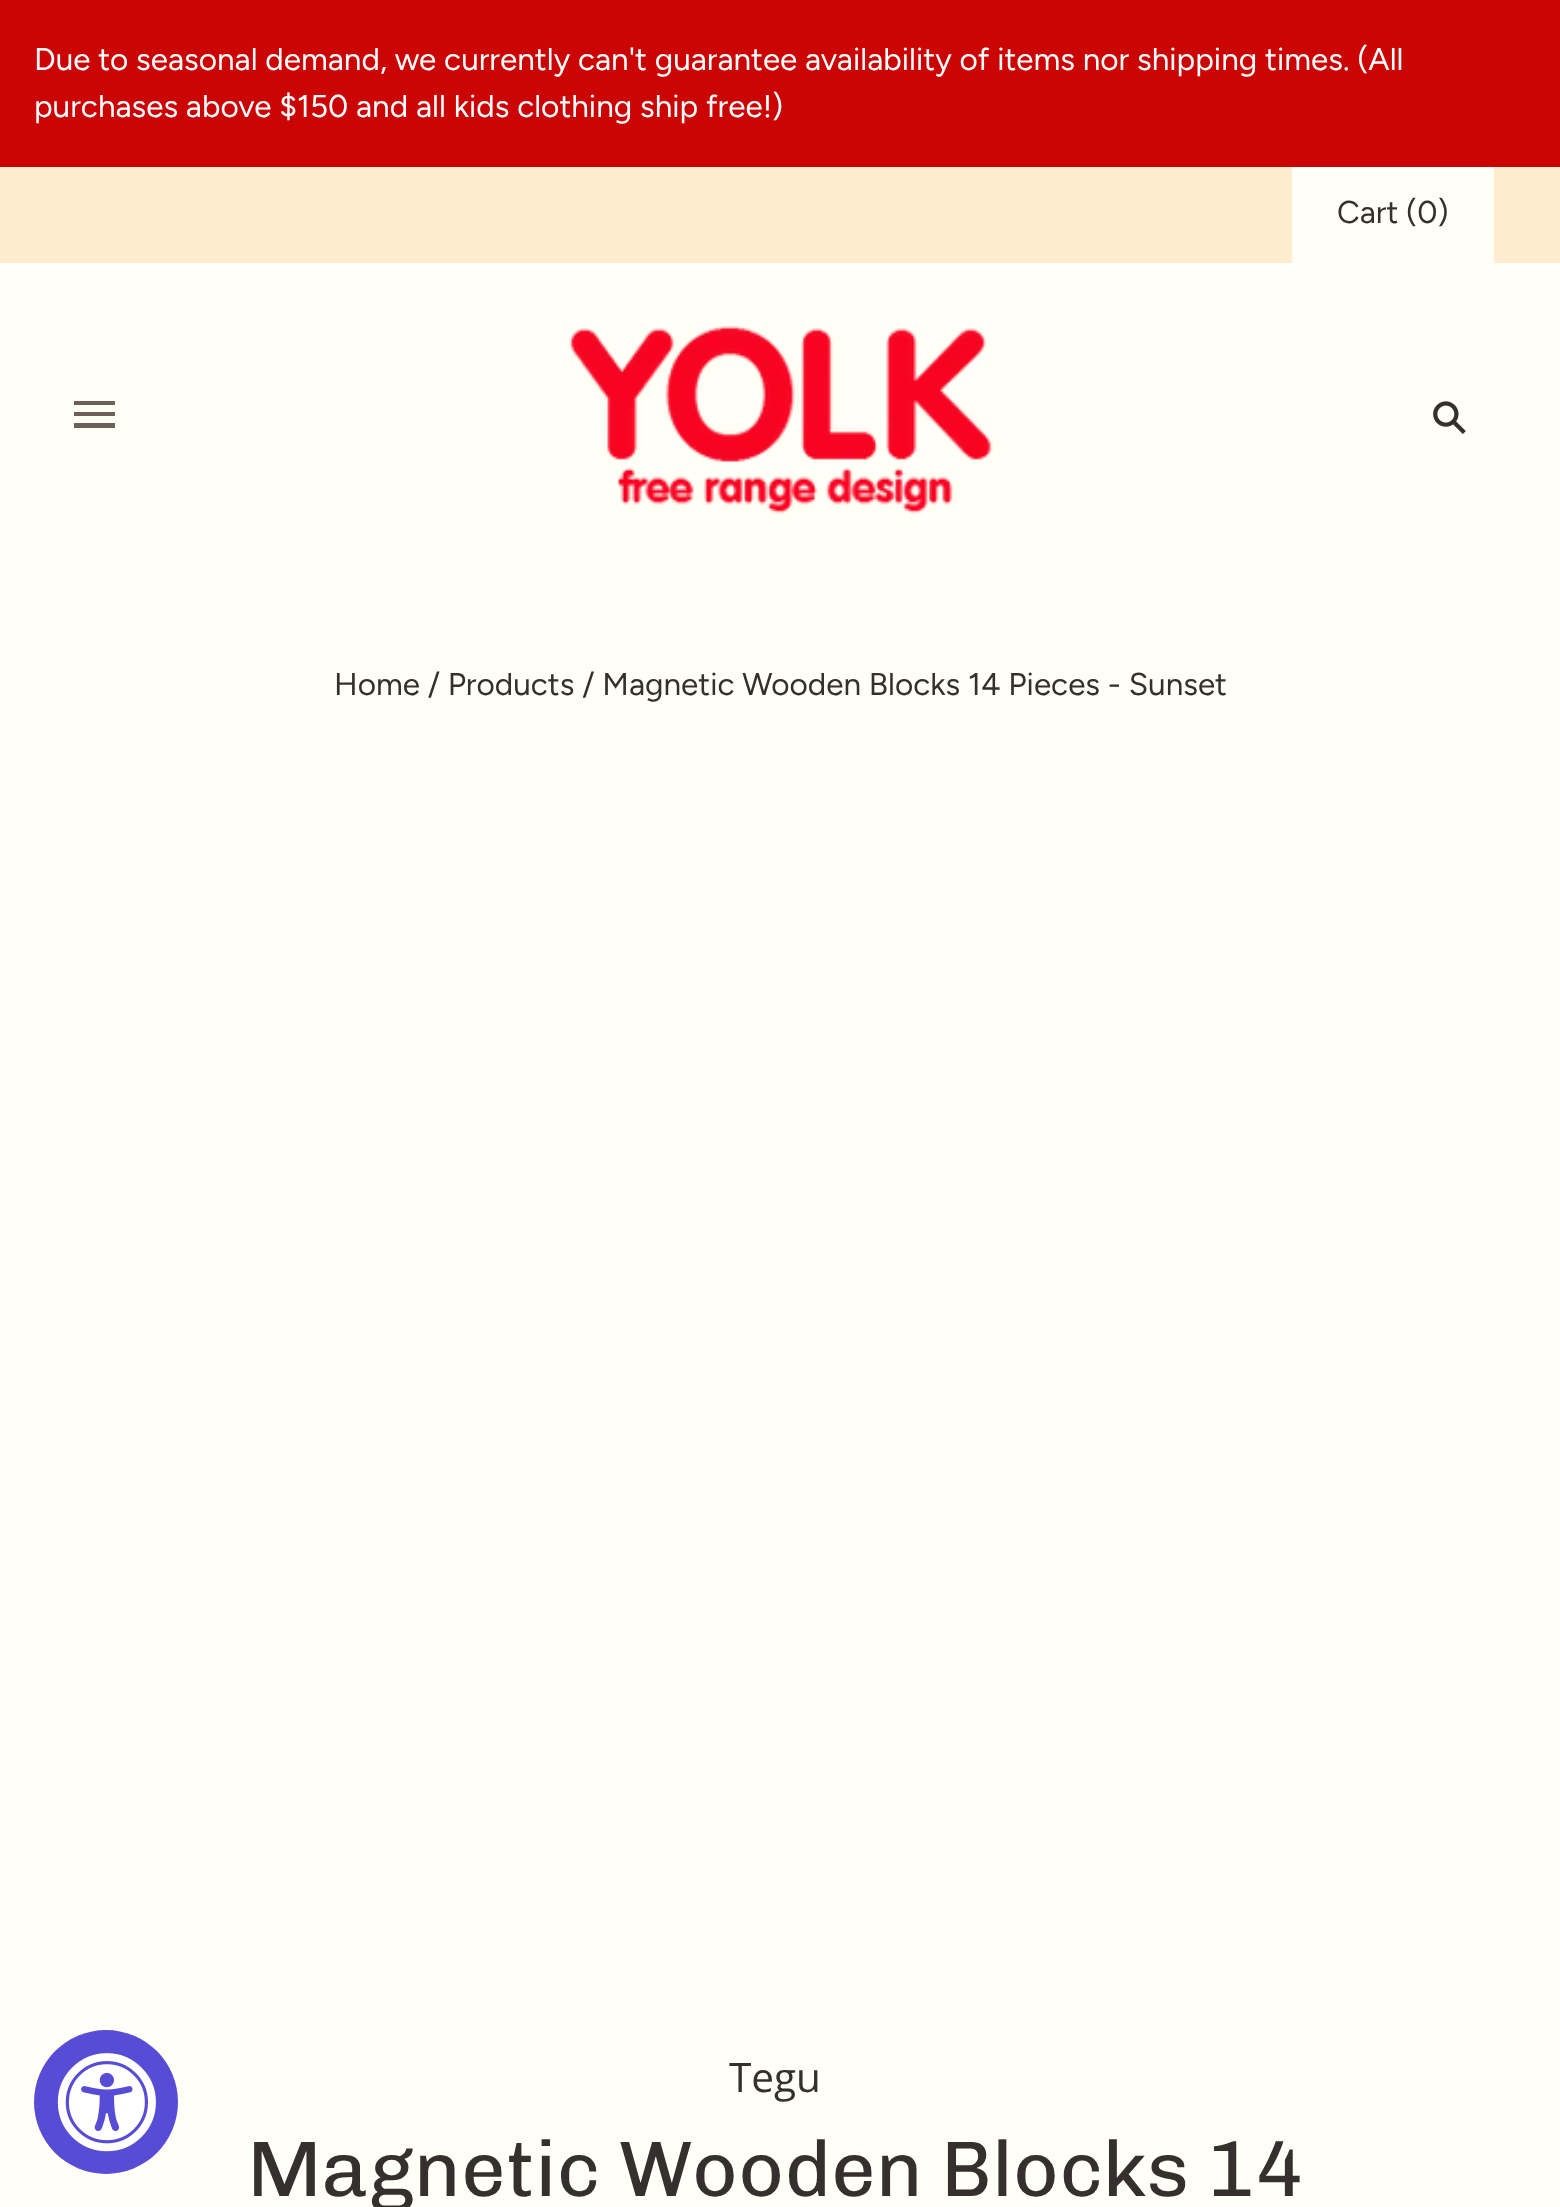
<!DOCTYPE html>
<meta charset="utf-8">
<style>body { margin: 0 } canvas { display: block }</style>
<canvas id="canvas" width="1560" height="2207"></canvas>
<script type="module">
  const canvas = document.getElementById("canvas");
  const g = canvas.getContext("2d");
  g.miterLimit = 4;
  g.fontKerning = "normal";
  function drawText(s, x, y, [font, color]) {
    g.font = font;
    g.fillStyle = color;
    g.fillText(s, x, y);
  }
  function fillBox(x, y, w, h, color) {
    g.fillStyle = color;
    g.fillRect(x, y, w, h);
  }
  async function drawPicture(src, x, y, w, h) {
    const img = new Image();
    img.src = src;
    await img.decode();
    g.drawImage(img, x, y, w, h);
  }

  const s1 = ["31.5px Figtree", "#FFFFFF"];
  const s2 = ["31.5px Figtree", "#352F2D"];
  const s3 = ["40.5px Open Sans", "#352F2D"];
  const s4 = ["78.75px Chivo", "#352F2D"];

  fillBox(0, 0, 1560, 2207, "#FFFFF7");
  fillBox(0, 0, 1560, 167, "#CB0404");
  drawText("Due to seasonal demand, we currently can't guarantee availability of items nor shipping times. (All", 34, 70, s1);
  drawText("purchases above $150 and all kids clothing ship free!)", 34, 117, s1);
  fillBox(0, 167, 1560, 96, "#FFECCF");
  fillBox(1292, 167, 202, 96, "#FFFFF7");
  drawText("Cart (0)", 1337, 223, s2);
  g.save();
  g.beginPath();
  g.rect(74, 401, 41, 27);
  g.clip();
  g.fillStyle = "#6D5F5A";
  g.beginPath();
  g.moveTo(74, 400);
  g.lineTo(115, 400);
  g.lineTo(115, 405);
  g.lineTo(74, 405);
  g.closePath();
  g.moveTo(74, 412);
  g.lineTo(115, 412);
  g.lineTo(115, 416);
  g.lineTo(74, 416);
  g.closePath();
  g.moveTo(74, 423);
  g.lineTo(115, 423);
  g.lineTo(115, 428);
  g.lineTo(74, 428);
  g.closePath();
  g.fill("evenodd");
  g.restore();
  await drawPicture("pic1.png", 569, 325, 424, 189);
  await drawPicture("pic2.png", 1433, 401, 33, 33);
  g.fillStyle = "#574CD5";
  g.beginPath();
  g.arc(106, 2102, 72, 0, Math.PI * 2);
  g.fill();
  await drawPicture("pic3.png", 57, 2053, 99, 99);
  drawText("Home / Products / Magnetic Wooden Blocks 14 Pieces - Sunset", 334, 695, s2);
  drawText("Tegu", 729, 2092, s3);
  drawText("Magnetic Wooden Blocks 14", 247, 2196, s4);
</script>
